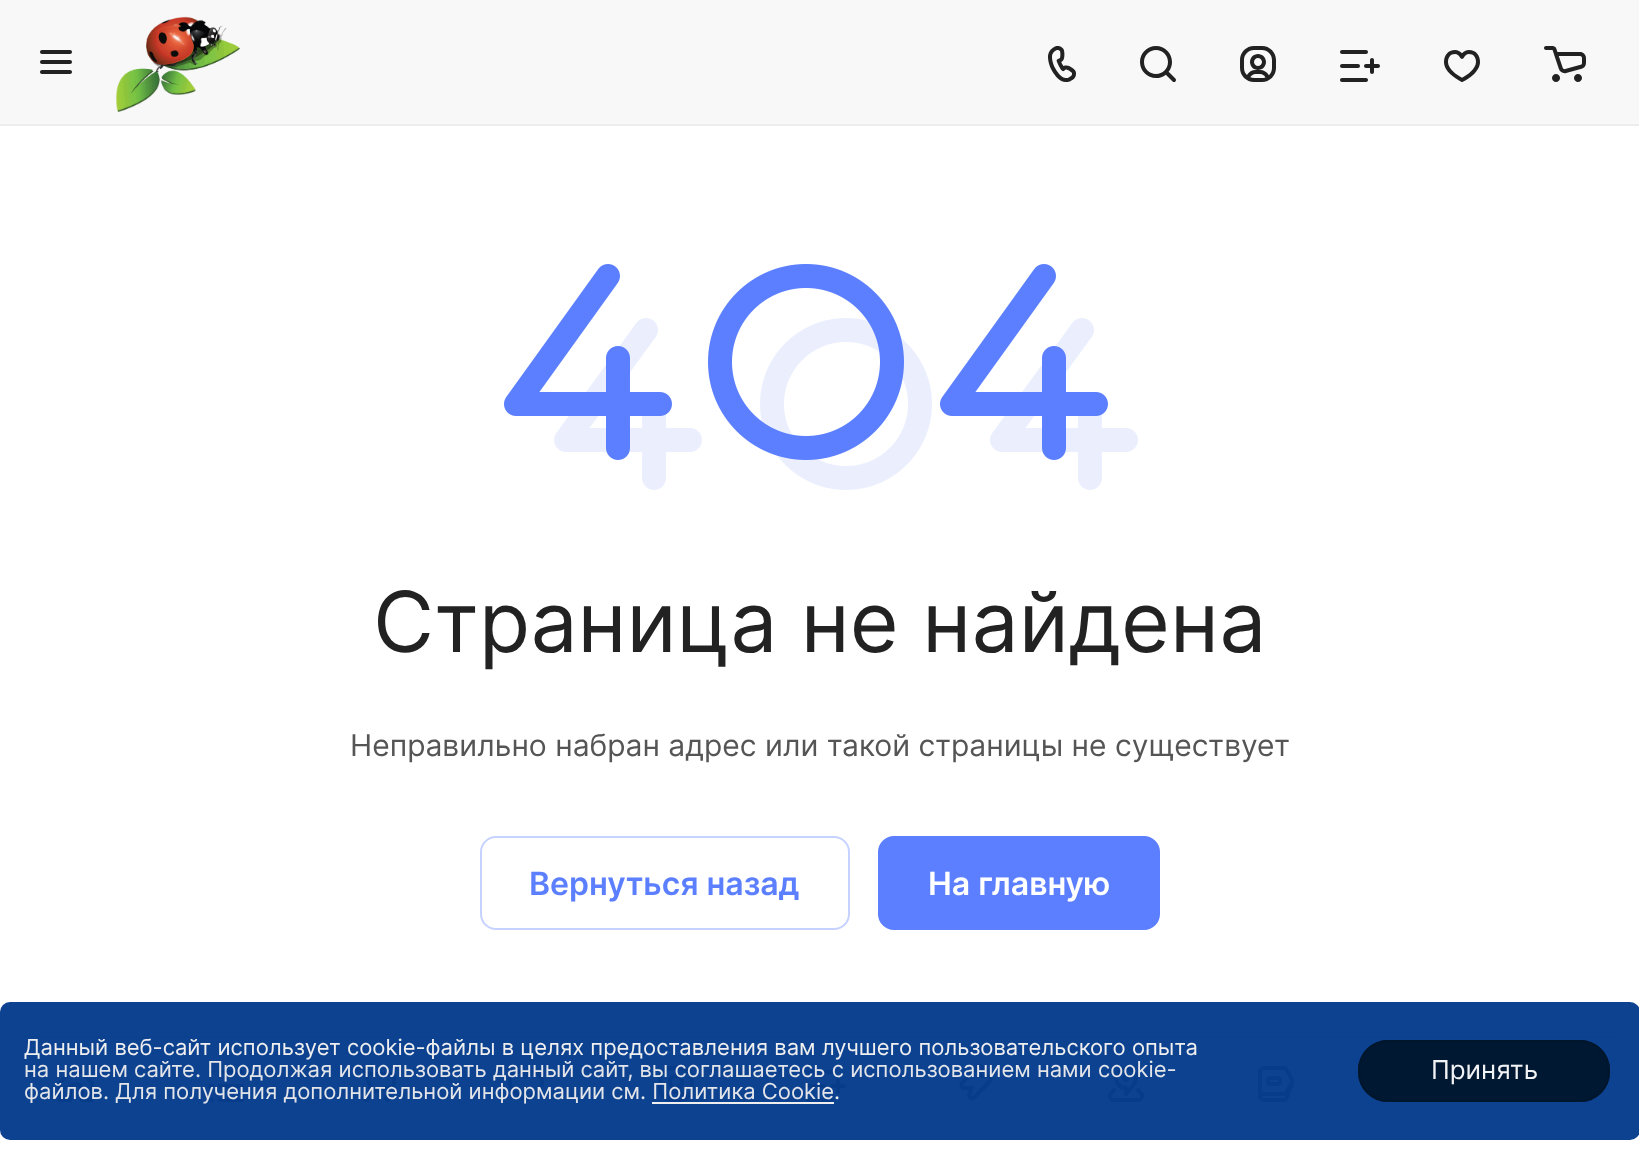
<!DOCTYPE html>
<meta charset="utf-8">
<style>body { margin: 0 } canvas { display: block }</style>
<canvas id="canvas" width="1639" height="1160"></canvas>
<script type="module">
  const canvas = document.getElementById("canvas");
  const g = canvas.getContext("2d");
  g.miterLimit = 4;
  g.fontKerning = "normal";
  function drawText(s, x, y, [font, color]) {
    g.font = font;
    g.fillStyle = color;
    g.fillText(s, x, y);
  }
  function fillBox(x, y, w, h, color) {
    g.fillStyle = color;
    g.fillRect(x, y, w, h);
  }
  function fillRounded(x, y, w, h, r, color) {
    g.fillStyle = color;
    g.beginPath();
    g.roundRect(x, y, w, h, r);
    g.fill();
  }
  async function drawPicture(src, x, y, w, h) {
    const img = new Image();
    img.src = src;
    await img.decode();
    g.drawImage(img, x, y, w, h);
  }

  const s1 = ["84px Inter", "#222222"];
  const s2 = ["30px Inter", "#555555"];
  const s3 = ["600 32px Inter", "#5B7FFF"];
  const s4 = ["600 32px Inter", "#FFFFFF"];
  const s5 = ["22px Inter", "#EFEFEF"];
  const s6 = ["22px Inter", "#E3E5E9"];
  const s7 = ["26px Inter", "#F2F3F5"];

  fillBox(0, 0, 1639, 1160, "#FFFFFF");
  fillBox(0, 124, 1639, 2, "#EDEDED");
  fillBox(0, 0, 1639, 124, "#F8F8F8");
  await drawPicture("pic1.png", 40, 50, 32, 24);
  await drawPicture("pic2.png", 116, 16, 124, 96);
  await drawPicture("pic3.png", 1048, 46, 28, 36);
  await drawPicture("pic4.png", 1140, 46, 36, 36);
  await drawPicture("pic5.png", 1240, 46, 36, 36);
  await drawPicture("pic6.png", 1340, 50, 40, 32);
  await drawPicture("pic7.png", 1444, 50, 36, 32);
  await drawPicture("pic8.png", 1544, 46, 42, 36);
  await drawPicture("pic9.png", 504, 264, 634, 226);
  drawText("Страница не найдена", 373, 652, s1);
  drawText("Неправильно набран адрес или такой страницы не существует", 350, 756, s2);
  g.beginPath();
  g.roundRect(481, 837, 368, 92, 15);
  g.strokeStyle = "#C6D2FF";
  g.lineWidth = 2;
  g.stroke();
  drawText("Вернуться назад", 529, 895, s3);
  g.beginPath();
  g.roundRect(879, 837, 280, 92, 15);
  g.fill();
  g.strokeStyle = "#5B7FFF";
  g.stroke();
  drawText("На главную", 928, 895, s4);
  g.fillStyle = "rgba(0, 0, 0, 0.1)";
  g.filter = "blur(10px)";
  g.beginPath();
  g.rect(0, 1032, 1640, 122);
  g.fill();
  g.filter = "none";
  fillBox(0, 1038, 1639, 122, "#FFFFFF");
  await drawPicture("pic10.png", 58, 1066, 36, 36);
  await drawPicture("pic11.png", 208, 1070, 36, 32);
  await drawPicture("pic12.png", 354, 1066, 42, 36);
  await drawPicture("pic13.png", 508, 1070, 36, 32);
  await drawPicture("pic14.png", 658, 1066, 36, 36);
  await drawPicture("pic15.png", 806, 1070, 40, 32);
  await drawPicture("pic16.png", 959, 1063, 34, 38);
  await drawPicture("pic17.png", 1108, 1066, 36, 36);
  await drawPicture("pic18.png", 1258, 1066, 36, 36);
  await drawPicture("pic19.png", 1408, 1066, 36, 36);
  await drawPicture("pic20.png", 1558, 1066, 36, 36);
  fillRounded(0, 1002, 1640, 138, 10, "rgba(0, 56, 139, 0.95)");
  drawText("Данный веб-сайт использует cookie-файлы в целях предоставления вам лучшего пользовательского опыта", 24, 1055, s5);
  drawText("на нашем сайте. Продолжая использовать данный сайт, вы соглашаетесь с использованием нами cookie-", 24, 1077, s6);
  drawText("файлов. Для получения дополнительной информации см. Политика Cookie", 24, 1099, s6);
  drawText(".", 834, 1099, s5);
  fillBox(652, 1102, 182, 2, "#EFEFEF");
  fillRounded(1358, 1040, 252, 62, 30, "rgba(0, 22, 45, 0.95)");
  g.beginPath();
  g.roundRect(1359, 1041, 250, 60, 29);
  g.strokeStyle = "rgba(0, 22, 45, 0.95)";
  g.stroke();
  drawText("Принять", 1431, 1079, s7);
</script>
